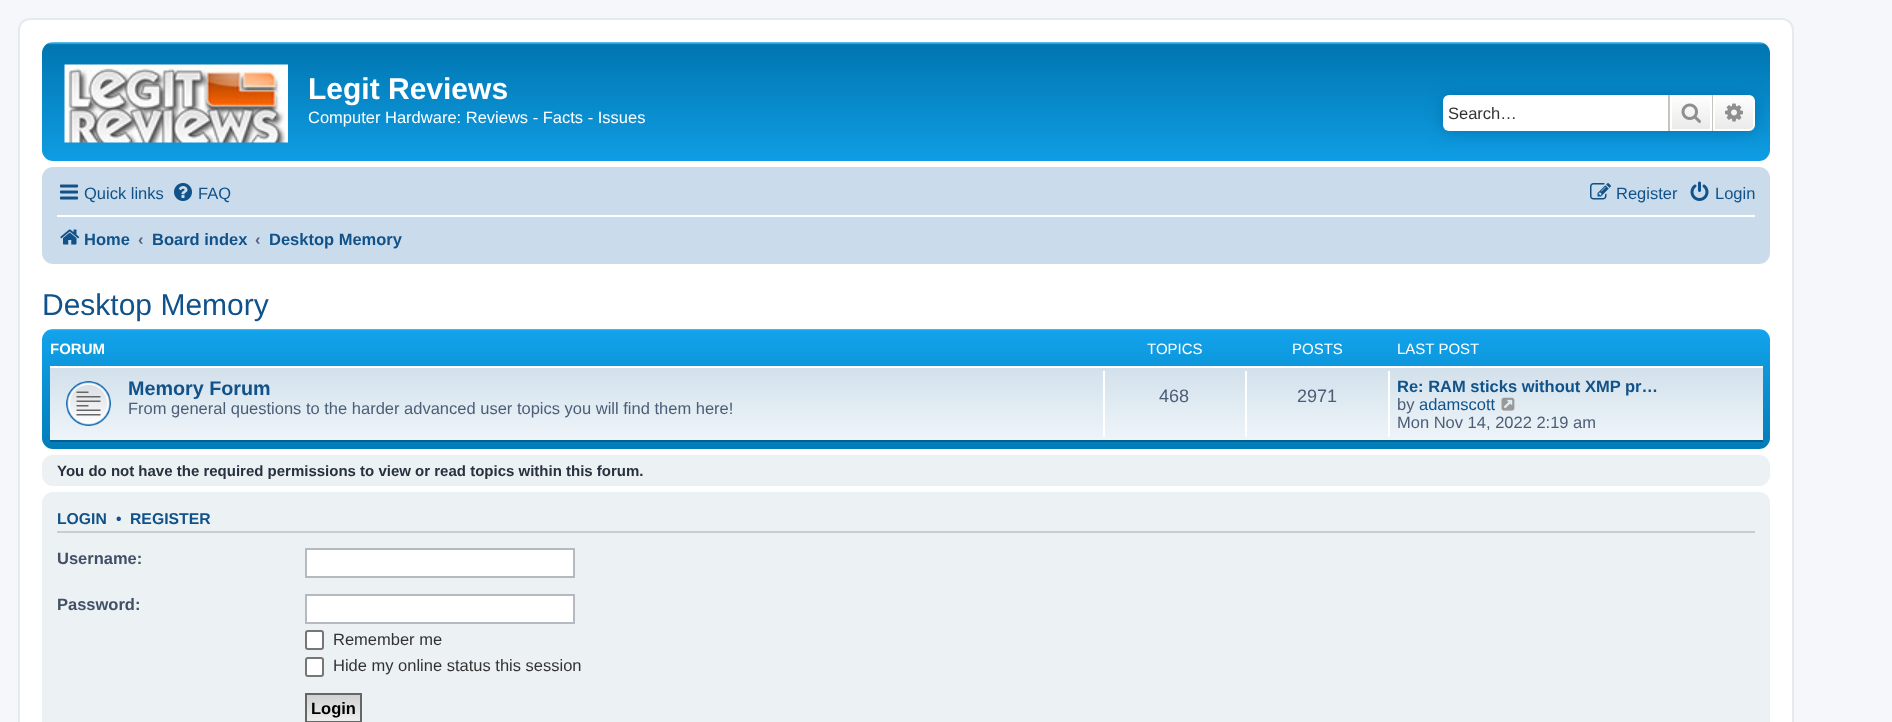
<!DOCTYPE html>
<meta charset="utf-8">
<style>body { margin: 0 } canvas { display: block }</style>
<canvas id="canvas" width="1892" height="722"></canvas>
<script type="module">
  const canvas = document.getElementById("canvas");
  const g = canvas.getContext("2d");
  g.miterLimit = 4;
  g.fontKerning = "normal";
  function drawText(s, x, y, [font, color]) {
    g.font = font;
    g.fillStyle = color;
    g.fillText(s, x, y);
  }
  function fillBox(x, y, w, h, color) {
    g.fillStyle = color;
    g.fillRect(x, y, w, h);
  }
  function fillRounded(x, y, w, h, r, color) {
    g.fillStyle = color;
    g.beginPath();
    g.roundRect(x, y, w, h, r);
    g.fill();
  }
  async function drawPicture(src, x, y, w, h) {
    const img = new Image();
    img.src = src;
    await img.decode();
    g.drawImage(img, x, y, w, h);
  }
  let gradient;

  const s1 = ["bold 30px Liberation Sans", "#FFFFFF"];
  const s2 = ["16.5px Liberation Sans", "#FFFFFF"];
  const s3 = ["16.5px Liberation Sans", "#333333"];
  const s4 = ["16.5px Liberation Sans", "#105289"];
  const s5 = ["bold 16.5px Liberation Sans", "#105289"];
  const s6 = ["bold 16.5px Liberation Sans", "#536482"];
  const s7 = ["30px Liberation Sans", "#105289"];
  const s8 = ["bold 15px Liberation Sans", "#FFFFFF"];
  const s9 = ["15px Liberation Sans", "#FFFFFF"];
  const s10 = ["bold 19.75px Liberation Sans", "#105289"];
  const s11 = ["16.5px Liberation Sans", "#4C5D77"];
  const s12 = ["18px Liberation Sans", "#4C5D77"];
  const s13 = ["bold 15px Liberation Sans", "#28313F"];
  const s14 = ["bold 15.75px Liberation Sans", "#105289"];
  const s15 = ["bold 15.75px Liberation Sans", "#115098"];
  const s16 = ["bold 16.5px Liberation Sans", "#425067"];
  const s17 = ["bold 16.5px Liberation Sans", "#000000"];

  fillBox(0, 0, 1892, 722, "#F5F7FA");
  g.fillStyle = "#FFFFFF";
  g.beginPath();
  g.roundRect(19, 19, 1774, 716, 11);
  g.fill();
  g.strokeStyle = "#E6E9ED";
  g.lineWidth = 2;
  g.stroke();
  gradient = g.createLinearGradient(906, 42, 906, 180);
  gradient.addColorStop(0, "#6ACEFF");
  gradient.addColorStop(0.02, "#0076B1");
  gradient.addColorStop(1, "#12A3EB");
  g.fillStyle = gradient;
  g.beginPath();
  g.roundRect(42, 42, 1728, 119, 11);
  g.fill();
  await drawPicture("pic1.png", 64, 64, 224, 79);
  drawText("Legit Reviews", 308, 99, s1);
  drawText("Computer Hardware: Reviews - Facts - Issues", 308, 123, s2);
  g.fillStyle = "#0075B0";
  g.filter = "blur(7.5px)";
  g.beginPath();
  g.roundRect(1443, 95, 312, 36, 6);
  g.fill();
  g.filter = "none";
  g.fillStyle = "#FFFFFF";
  g.beginPath();
  g.roundRect(1443, 95, 225, 36, [6, 0, 0, 6]);
  g.fill();
  drawText("Search…", 1448, 119, s3);
  gradient = g.createLinearGradient(1691, 95, 1691, 131);
  gradient.addColorStop(0, "#FFFFFF");
  gradient.addColorStop(1, "#E9E9E9");
  g.fillStyle = gradient;
  g.fillRect(1672, 97, 38, 32);
  g.strokeStyle = "#FFFFFF";
  g.strokeRect(1671, 96, 40, 34);
  fillBox(1712, 95, 1, 36, "#C7C3BF");
  fillBox(1668, 95, 2, 36, "#C7C3BF");
  await drawPicture("pic2.png", 1681, 103, 20, 20);
  gradient = g.createLinearGradient(1734, 95, 1734, 131);
  gradient.addColorStop(0, "#FFFFFF");
  gradient.addColorStop(1, "#E9E9E9");
  g.fillStyle = gradient;
  g.beginPath();
  g.roundRect(1714, 96, 40, 34, [0, 5, 5, 0]);
  g.fill();
  g.stroke();
  await drawPicture("pic3.png", 1725, 103, 18, 19);
  fillRounded(42, 167, 1728, 97, 11, "#CADCEB");
  await drawPicture("pic4.png", 60, 184, 18, 16);
  drawText("Quick links", 84, 199, s4);
  await drawPicture("pic5.png", 174, 183, 18, 18);
  drawText("FAQ", 198, 199, s4);
  await drawPicture("pic6.png", 1590, 183, 21, 17);
  drawText("Register", 1616, 199, s4);
  await drawPicture("pic7.png", 1690, 181, 19, 20);
  drawText("Login", 1715, 199, s4);
  fillBox(57, 215, 1698, 2, "#FFFFFF");
  await drawPicture("pic8.png", 60, 229, 20, 16);
  drawText("Home", 84, 245, s5);
  drawText("‹", 138, 245, s6);
  drawText("Board index", 152, 245, s5);
  drawText("‹", 255, 245, s6);
  drawText("Desktop Memory", 269, 245, s5);
  drawText("Desktop Memory", 42, 315, s7);
  gradient = g.createLinearGradient(906, 328, 906, 466);
  gradient.addColorStop(0, "#6ACEFF");
  gradient.addColorStop(0.02, "#12A3EB");
  gradient.addColorStop(1, "#0076B1");
  g.fillStyle = gradient;
  g.beginPath();
  g.roundRect(42, 329, 1728, 120, 11);
  g.fill();
  drawText("FORUM", 50, 354, s8);
  drawText("TOPICS", 1147, 354, s9);
  drawText("POSTS", 1292, 354, s9);
  drawText("LAST POST", 1397, 354, s9);
  gradient = g.createLinearGradient(906, 366, 906, 441);
  gradient.addColorStop(0, "#D2E0EB");
  gradient.addColorStop(1, "#EEF5F9");
  g.fillStyle = gradient;
  g.fillRect(50, 368, 1713, 72);
  fillBox(50, 366, 1713, 2, "#FFFFFF");
  fillBox(50, 440, 1713, 2, "#00608F");
  await drawPicture("pic9.png", 66, 381, 45, 45);
  drawText("Memory Forum", 128, 395, s10);
  drawText("From general questions to the harder advanced user topics you will find them here!", 128, 414, s11);
  fillBox(1103, 371, 2, 66, "#FFFFFF");
  drawText("468", 1159, 402, s12);
  fillBox(1245, 371, 2, 66, "#FFFFFF");
  drawText("2971", 1297, 402, s12);
  fillBox(1388, 371, 2, 66, "#FFFFFF");
  drawText("Re: RAM sticks without XMP pr…", 1397, 392, s5);
  drawText("by", 1397, 410, s11);
  drawText("adamscott", 1419, 410, s4);
  await drawPicture("pic10.png", 1501, 397, 14, 14);
  drawText("Mon Nov 14, 2022 2:19 am", 1397, 428, s11);
  fillRounded(42, 455, 1728, 31, 11, "#ECF1F3");
  drawText("You do not have the required permissions to view or read topics within this forum.", 57, 476, s13);
  fillRounded(42, 492, 1728, 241, 11, "#ECF1F3");
  fillBox(57, 531, 1698, 2, "#CCCCCC");
  drawText("LOGIN", 57, 524, s14);
  drawText("•", 116, 524, s15);
  drawText("REGISTER", 130, 524, s14);
  drawText("Username:", 57, 564, s16);
  g.fillStyle = "#FFFFFF";
  g.beginPath();
  g.rect(306, 549, 268, 28);
  g.fill();
  g.strokeStyle = "#B4BAC0";
  g.stroke();
  drawText("Password:", 57, 610, s16);
  g.fillStyle = "#FFFFFF";
  g.beginPath();
  g.rect(306, 595, 268, 28);
  g.fill();
  g.stroke();
  g.beginPath();
  g.roundRect(306, 631, 17, 18, 2);
  g.fill();
  g.strokeStyle = "#767676";
  g.stroke();
  drawText("Remember me", 333, 645, s3);
  g.fillStyle = "#FFFFFF";
  g.beginPath();
  g.roundRect(306, 658, 17, 18, 2);
  g.fill();
  g.stroke();
  drawText("Hide my online status this session", 333, 671, s3);
  gradient = g.createLinearGradient(333, 695, 333, 722);
  gradient.addColorStop(0, "#D2D2D2");
  gradient.addColorStop(1, "#EFEFEF");
  g.fillStyle = gradient;
  g.fillRect(307, 695, 53, 26);
  g.strokeStyle = "#666666";
  g.strokeRect(306, 694, 55, 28);
  drawText("Login", 311, 714, s17);
</script>
